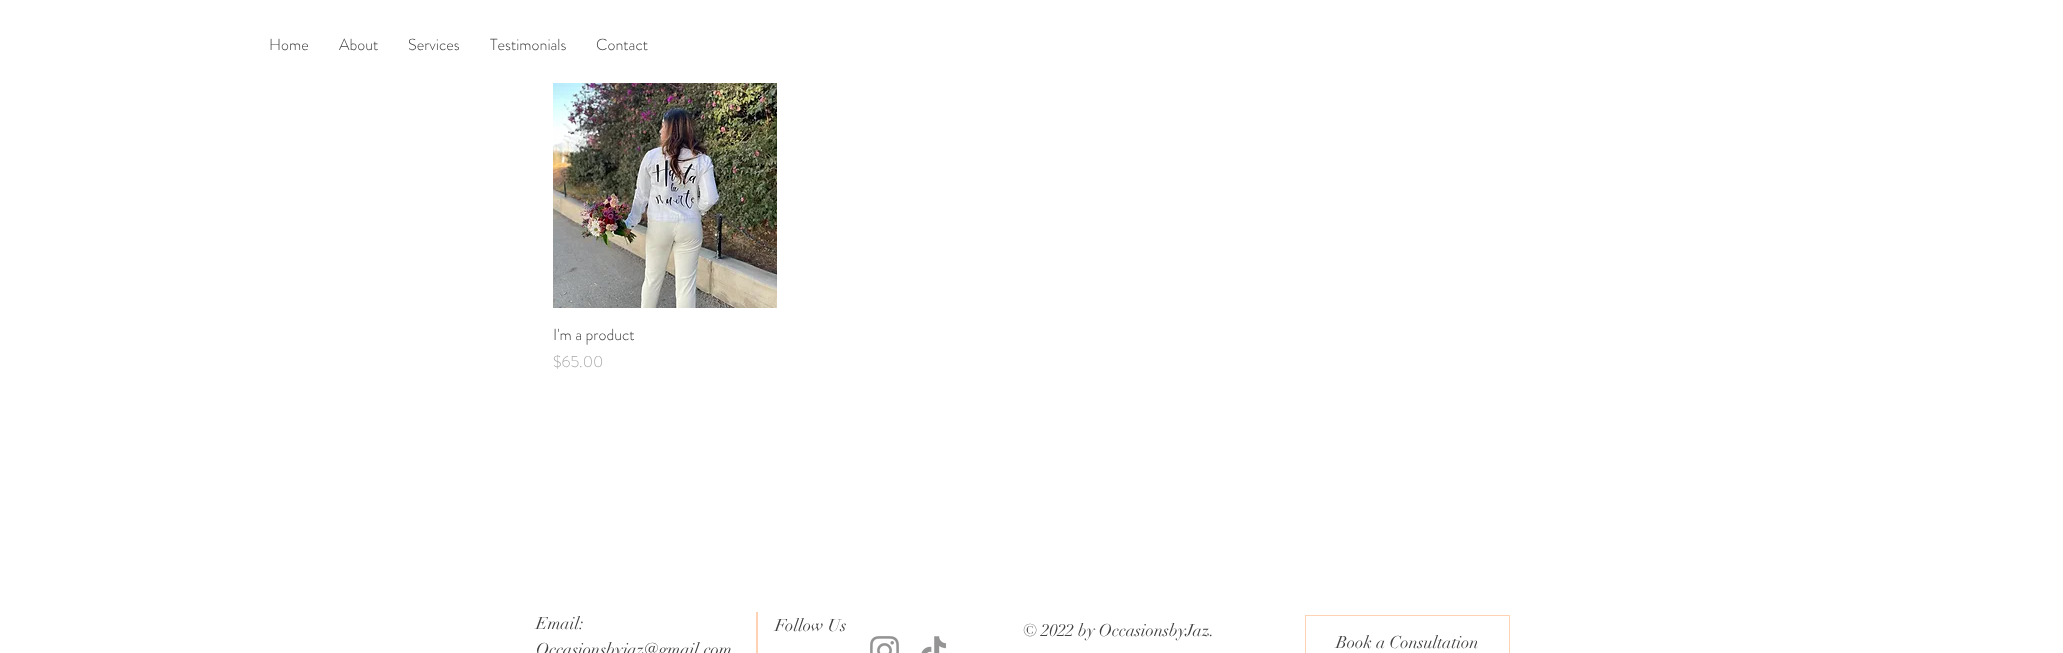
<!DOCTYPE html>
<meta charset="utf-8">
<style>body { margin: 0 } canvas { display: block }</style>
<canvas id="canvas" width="2063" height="653"></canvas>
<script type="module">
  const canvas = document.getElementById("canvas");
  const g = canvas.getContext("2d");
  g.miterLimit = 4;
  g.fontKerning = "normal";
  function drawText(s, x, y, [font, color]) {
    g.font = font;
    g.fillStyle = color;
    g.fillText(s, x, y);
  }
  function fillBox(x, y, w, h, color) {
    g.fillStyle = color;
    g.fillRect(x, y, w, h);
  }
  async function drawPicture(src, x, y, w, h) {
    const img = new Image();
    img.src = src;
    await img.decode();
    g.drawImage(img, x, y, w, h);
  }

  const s1 = ["300 16px 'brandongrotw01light'", "#414141"];
  const s2 = ["300 16px 'brandongrotw01light'", "#A8A8A7"];
  const s3 = ["17px didot", "#414141"];

  fillBox(0, 0, 2063, 653, "#FFFFFF");
  drawText("Home", 269, 50, s1);
  drawText("About", 339, 50, s1);
  drawText("Services", 408, 50, s1);
  drawText("Testimonials", 490, 50, s1);
  drawText("Contact", 596, 50, s1);
  await drawPicture("pic1.png", 553, 83, 224, 225);
  drawText("I'm a product", 553, 340, s1);
  drawText("$65.00", 553, 367, s2);
  drawText("Email:", 536, 629, s3);
  drawText("Occasionsbyjaz@gmail.com", 536, 655, s3);
  fillBox(756, 612, 2, 41, "#FFD2B3");
  drawText("Follow Us", 775, 631, s3);
  await drawPicture("pic2.png", 870, 636, 29, 17);
  await drawPicture("pic3.png", 921, 636, 26, 17);
  drawText("© 2022 by OccasionsbyJaz.", 1023, 636, s3);
  g.strokeStyle = "#FFD2B3";
  g.strokeRect(1305.5, 615.5, 204, 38);
  drawText("Book a Consultation", 1336, 648, s3);
</script>
